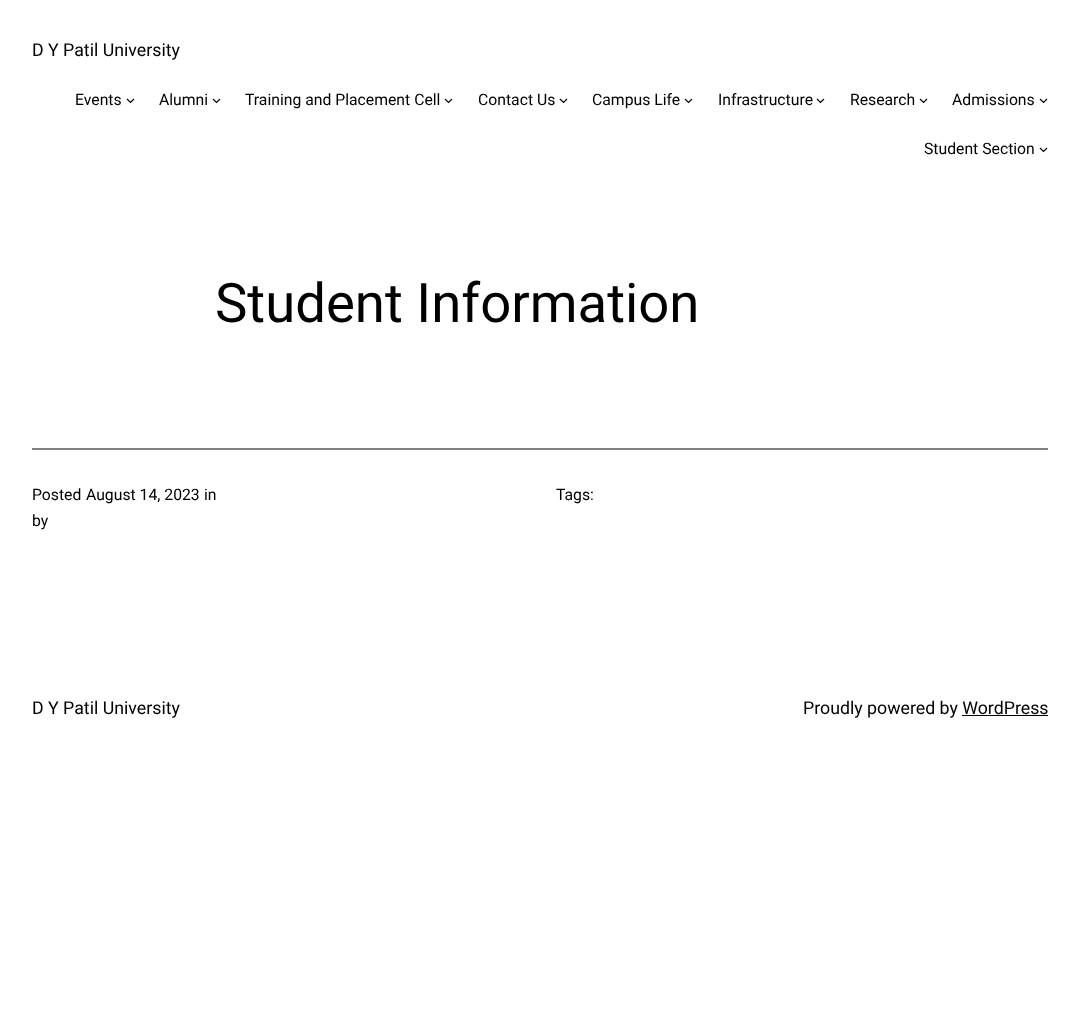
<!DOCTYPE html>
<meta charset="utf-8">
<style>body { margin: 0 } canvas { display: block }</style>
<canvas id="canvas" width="1080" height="1013"></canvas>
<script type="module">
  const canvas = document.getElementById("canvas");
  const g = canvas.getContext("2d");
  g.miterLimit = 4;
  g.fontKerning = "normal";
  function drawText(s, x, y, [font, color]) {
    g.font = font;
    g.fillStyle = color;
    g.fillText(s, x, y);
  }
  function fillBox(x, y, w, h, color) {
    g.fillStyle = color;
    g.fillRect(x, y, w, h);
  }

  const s1 = ["17.75px Roboto", "#000000"];
  const s2 = ["15.75px Roboto", "#000000"];
  const s3 = ["54.5px Roboto", "#000000"];

  fillBox(0, 0, 1080, 1013, "#FFFFFF");
  drawText("D Y Patil University", 32, 56, s1);
  drawText("Events", 75, 105, s2);
  g.beginPath();
  g.moveTo(127, 99);
  g.lineTo(130.5, 102.5);
  g.lineTo(134, 99);
  g.strokeStyle = "#000000";
  g.lineWidth = 1.2;
  g.stroke();
  drawText("Alumni", 159, 105, s2);
  g.beginPath();
  g.moveTo(213, 99);
  g.lineTo(216.5, 102.5);
  g.lineTo(220, 99);
  g.stroke();
  drawText("Training and Placement Cell", 245, 105, s2);
  g.beginPath();
  g.moveTo(445, 99);
  g.lineTo(448.5, 102.5);
  g.lineTo(452, 99);
  g.stroke();
  drawText("Contact Us", 478, 105, s2);
  g.beginPath();
  g.moveTo(560, 99);
  g.lineTo(563.5, 102.5);
  g.lineTo(567, 99);
  g.stroke();
  drawText("Campus Life", 592, 105, s2);
  g.beginPath();
  g.moveTo(685, 99);
  g.lineTo(688.5, 102.5);
  g.lineTo(692, 99);
  g.stroke();
  drawText("Infrastructure", 718, 105, s2);
  g.beginPath();
  g.moveTo(817, 99);
  g.lineTo(820.5, 102.5);
  g.lineTo(824, 99);
  g.stroke();
  drawText("Research", 850, 105, s2);
  g.beginPath();
  g.moveTo(920, 99);
  g.lineTo(923.5, 102.5);
  g.lineTo(927, 99);
  g.stroke();
  drawText("Admissions", 952, 105, s2);
  g.beginPath();
  g.moveTo(1040, 99);
  g.lineTo(1043.5, 102.5);
  g.lineTo(1047, 99);
  g.stroke();
  drawText("Student Section", 924, 154, s2);
  g.beginPath();
  g.moveTo(1040, 148);
  g.lineTo(1043.5, 151.5);
  g.lineTo(1047, 148);
  g.stroke();
  drawText("Student Information", 215, 322, s3);
  fillBox(32, 448, 1016, 2, "#808080");
  drawText("Posted", 32, 500, s2);
  drawText("August 14, 2023", 86, 500, s2);
  drawText("in", 204, 500, s2);
  drawText("by", 32, 526, s2);
  drawText("Tags:", 556, 500, s2);
  drawText("D Y Patil University", 32, 714, s1);
  drawText("Proudly powered by WordPress", 803, 714, s1);
  fillBox(962, 715, 86, 1, "#000000");
</script>
